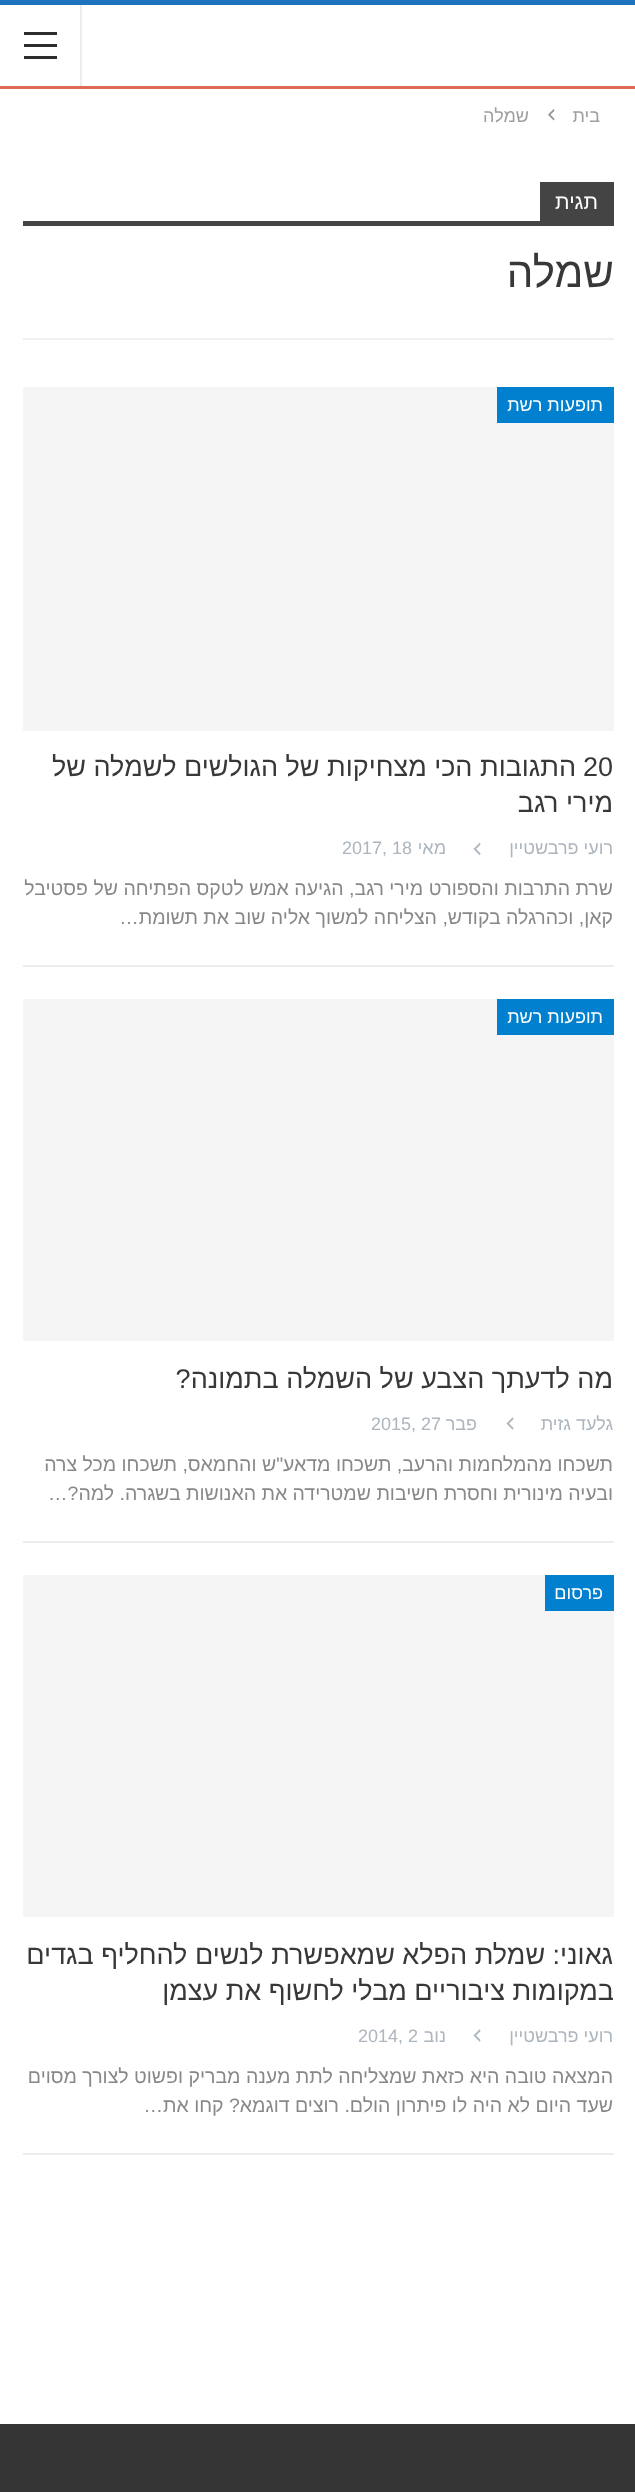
<!DOCTYPE html>
<meta charset="utf-8">
<style>body { margin: 0 } canvas { display: block }</style>
<canvas id="canvas" width="635" height="2492"></canvas>
<script type="module">
  const canvas = document.getElementById("canvas");
  const g = canvas.getContext("2d");
  g.miterLimit = 4;
  g.fontKerning = "normal";
  function drawText(s, x, y, [font, color]) {
    g.font = font;
    g.fillStyle = color;
    g.fillText(s, x, y);
  }
  function fillBox(x, y, w, h, color) {
    g.fillStyle = color;
    g.fillRect(x, y, w, h);
  }
  async function drawPicture(src, x, y, w, h) {
    const img = new Image();
    img.src = src;
    await img.decode();
    g.drawImage(img, x, y, w, h);
  }

  const s1 = ["18px Liberation Sans", "#9E9E9E"];
  const s2 = ["21px Liberation Sans", "#FFFFFF"];
  const s3 = ["42px Liberation Sans", "#383838"];
  const s4 = ["18px Liberation Sans", "#FFFFFF"];
  const s5 = ["27px Liberation Sans", "#383838"];
  const s6 = ["18px Liberation Sans", "#ADB5BD"];
  const s7 = ["19.5px Liberation Sans", "#888888"];

  fillBox(0, 0, 635, 2492, "#1E73BE");
  fillBox(0, 5, 635, 2419, "#FFFFFF");
  fillBox(0, 86, 635, 3, "#DD6854");
  fillBox(80, 5, 2, 81, "#EDEDED");
  fillBox(24, 44, 33, 3, "#2C2C2C");
  fillBox(24, 32, 33, 3, "#2C2C2C");
  fillBox(24, 56, 33, 3, "#2C2C2C");
  g.direction = "rtl";
  drawText("בית", 600, 122, s1);
  await drawPicture("pic1.png", 548, 109, 7, 12);
  drawText("שמלה", 529, 122, s1);
  fillBox(23, 338, 591, 2, "#F0F0F0");
  fillBox(540, 182, 74, 39, "#444444");
  drawText("תגית", 598, 209, s2);
  fillBox(23, 221, 591, 5, "#444444");
  drawText("שמלה", 614, 287, s3);
  fillBox(23, 387, 591, 344, "#F5F5F5");
  fillBox(497, 387, 117, 36, "#0080CE");
  drawText("תופעות רשת", 603, 411, s4);
  g.direction = "ltr";
  drawText("20", 583, 776, s5);
  g.direction = "rtl";
  drawText("התגובות הכי מצחיקות של הגולשים לשמלה של", 576, 776, s5);
  drawText("מירי רגב", 613, 812, s5);
  drawText("רועי פרבשטיין", 613, 854, s6);
  await drawPicture("pic2.png", 473, 842, 8, 14);
  drawText("מאי", 446, 854, s6);
  g.direction = "ltr";
  drawText("2017, 18", 342, 854, s6);
  fillBox(23, 965, 591, 2, "#EDEDED");
  g.direction = "rtl";
  drawText("שרת התרבות והספורט מירי רגב, הגיעה אמש לטקס הפתיחה של פסטיבל", 613, 895, s7);
  drawText("קאן, וכהרגלה בקודש, הצליחה למשוך אליה שוב את תשומת…", 613, 924, s7);
  fillBox(23, 999, 591, 342, "#F5F5F5");
  fillBox(497, 999, 117, 36, "#0080CE");
  drawText("תופעות רשת", 603, 1023, s4);
  drawText("מה לדעתך הצבע של השמלה בתמונה?", 613, 1388, s5);
  drawText("גלעד גזית", 613, 1430, s6);
  await drawPicture("pic3.png", 506, 1417, 8, 13);
  drawText("פבר", 477, 1430, s6);
  g.direction = "ltr";
  drawText("2015, 27", 371, 1430, s6);
  fillBox(23, 1541, 591, 2, "#EDEDED");
  g.direction = "rtl";
  drawText("תשכחו מהמלחמות והרעב, תשכחו מדאע\"ש והחמאס, תשכחו מכל צרה", 613, 1471, s7);
  drawText("ובעיה מינורית וחסרת חשיבות שמטרידה את האנושות בשגרה. למה?…", 613, 1500, s7);
  fillBox(23, 1575, 591, 342, "#F5F5F5");
  fillBox(545, 1575, 69, 36, "#0080CE");
  drawText("פרסום", 603, 1599, s4);
  drawText("גאוני: שמלת הפלא שמאפשרת לנשים להחליף בגדים", 613, 1964, s5);
  drawText("במקומות ציבוריים מבלי לחשוף את עצמן", 614, 2000, s5);
  drawText("רועי פרבשטיין", 613, 2042, s6);
  await drawPicture("pic3.png", 473, 2029, 8, 13);
  drawText("נוב", 446, 2042, s6);
  g.direction = "ltr";
  drawText("2014, 2", 358, 2042, s6);
  fillBox(23, 2153, 591, 2, "#EDEDED");
  g.direction = "rtl";
  drawText("המצאה טובה היא כזאת שמצליחה לתת מענה מבריק ופשוט לצורך מסוים", 613, 2083, s7);
  drawText("שעד היום לא היה לו פיתרון הולם. רוצים דוגמא? קחו את…", 613, 2112, s7);
  fillBox(0, 2424, 635, 68, "#353535");
</script>
